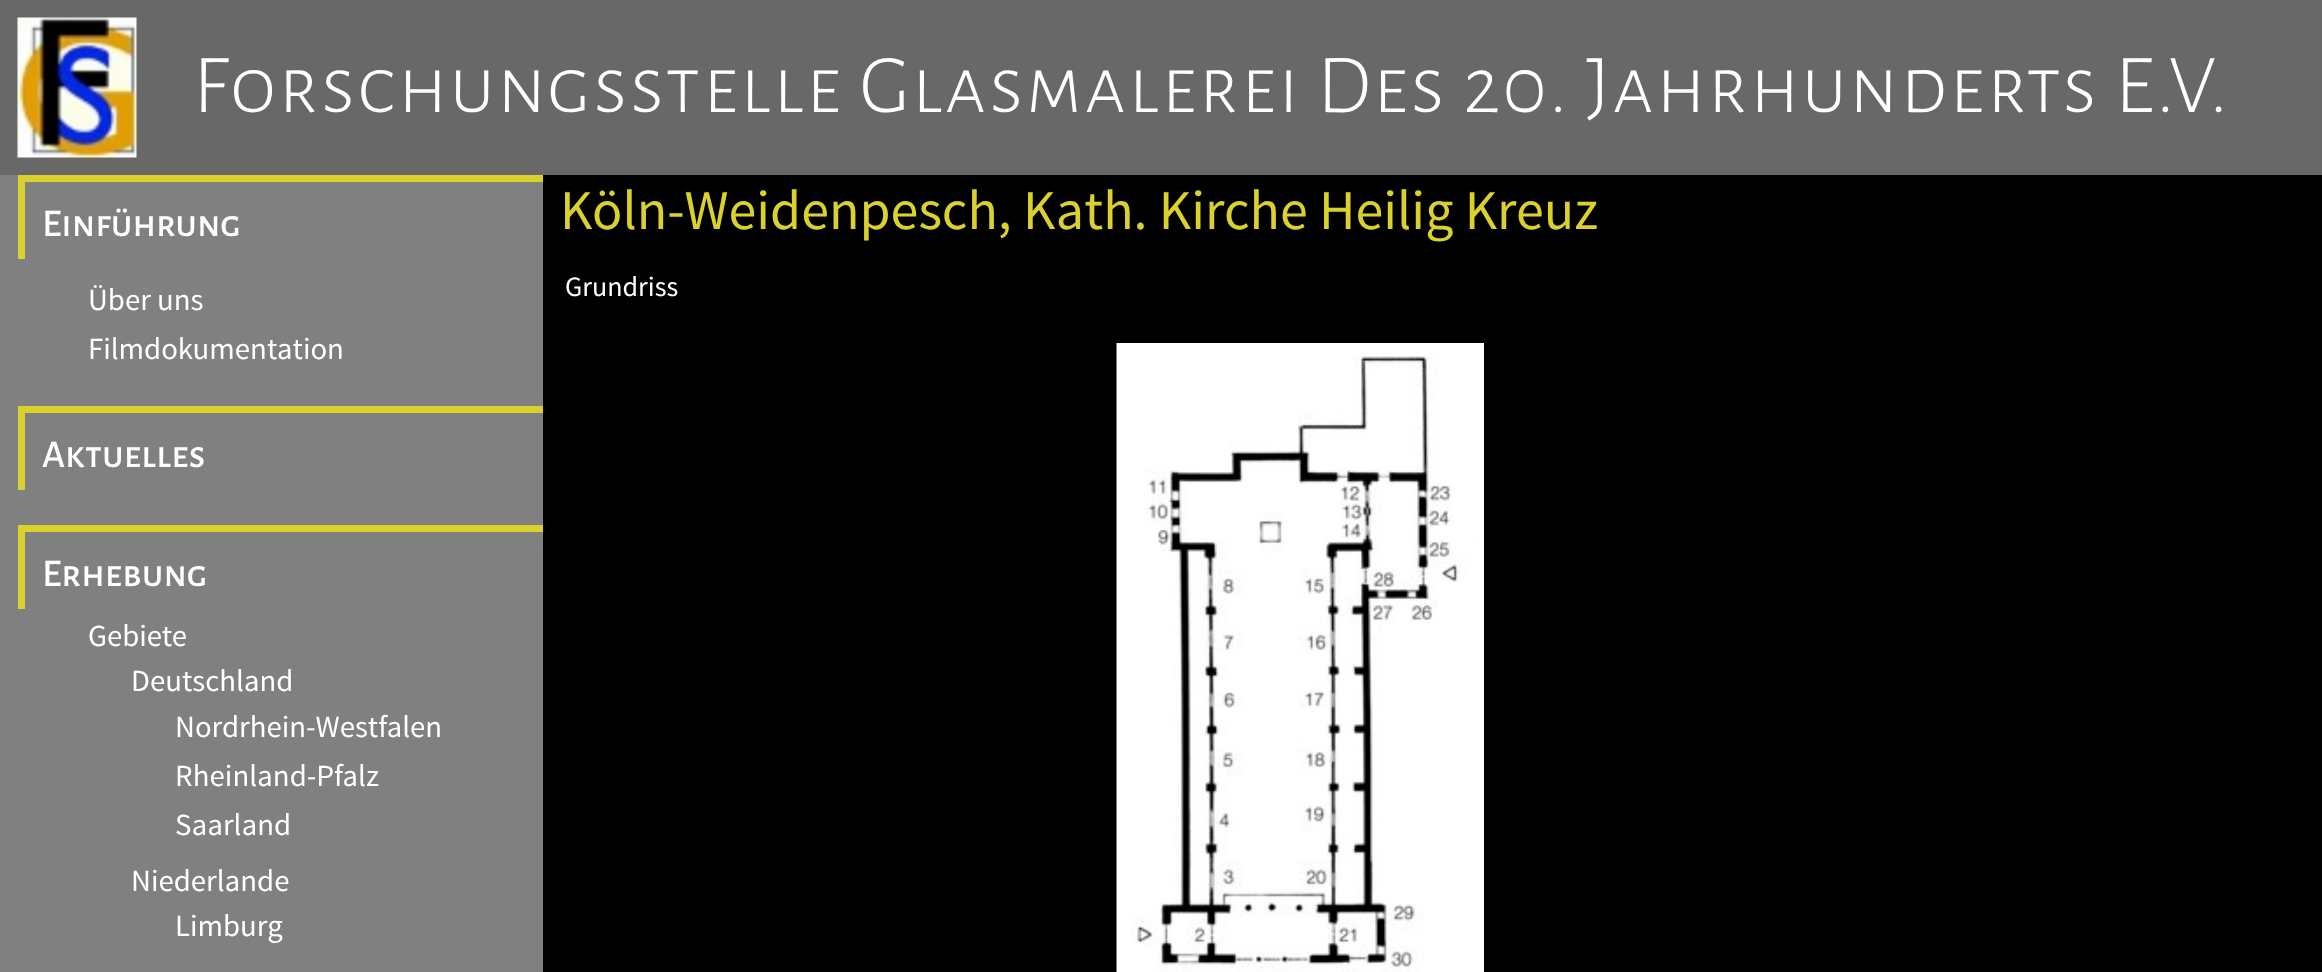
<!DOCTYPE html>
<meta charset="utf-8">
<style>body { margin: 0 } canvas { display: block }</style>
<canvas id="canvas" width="2322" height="972"></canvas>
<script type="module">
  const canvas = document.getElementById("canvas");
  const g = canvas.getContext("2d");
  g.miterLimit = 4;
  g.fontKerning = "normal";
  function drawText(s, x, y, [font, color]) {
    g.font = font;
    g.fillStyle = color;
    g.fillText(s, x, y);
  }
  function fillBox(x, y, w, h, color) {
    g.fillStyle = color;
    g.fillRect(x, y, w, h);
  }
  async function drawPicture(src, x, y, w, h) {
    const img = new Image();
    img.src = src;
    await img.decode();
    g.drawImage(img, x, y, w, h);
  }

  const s1 = ["300 84px Alegreya Sans SC", "#FFFFFF"];
  const s2 = ["500 39.25px Alegreya Sans SC", "#FFFFFF"];
  const s3 = ["30.75px Source Sans Pro", "#FFFFFF"];
  const s4 = ["56px Source Sans Pro", "#DBD12D"];
  const s5 = ["28px Source Sans Pro", "#FFFFFF"];

  fillBox(0, 0, 2322, 972, "#808080");
  fillBox(0, 0, 2322, 175, "#686868");
  await drawPicture("pic1.png", 17, 17, 120, 141);
  g.letterSpacing = "1.75px";
  drawText("Forschungsstelle Glasmalerei Des 20. Jahrhunderts E.V.", 193, 112, s1);
  fillBox(18, 175, 525, 7, "#DBD12D");
  fillBox(18, 175, 7, 84, "#DBD12D");
  g.letterSpacing = "0px";
  drawText("Einführung", 42, 236, s2);
  drawText("Über uns", 88, 310, s3);
  drawText("Filmdokumentation", 88, 359, s3);
  fillBox(18, 406, 525, 7, "#DBD12D");
  fillBox(18, 406, 7, 84, "#DBD12D");
  drawText("Aktuelles", 42, 467, s2);
  fillBox(18, 525, 525, 7, "#DBD12D");
  fillBox(18, 525, 7, 84, "#DBD12D");
  drawText("Erhebung", 42, 586, s2);
  drawText("Gebiete", 88, 646, s3);
  drawText("Deutschland", 131, 691, s3);
  drawText("Nordrhein-Westfalen", 175, 737, s3);
  drawText("Rheinland-Pfalz", 175, 786, s3);
  drawText("Saarland", 175, 835, s3);
  drawText("Niederlande", 131, 891, s3);
  drawText("Limburg", 175, 936, s3);
  fillBox(543, 175, 1779, 797, "#000000");
  drawText("Köln-Weidenpesch, Kath. Kirche Heilig Kreuz", 560, 229, s4);
  drawText("Grundriss", 565, 296, s5);
  await drawPicture("pic2.png", 1116, 343, 368, 629);
</script>
